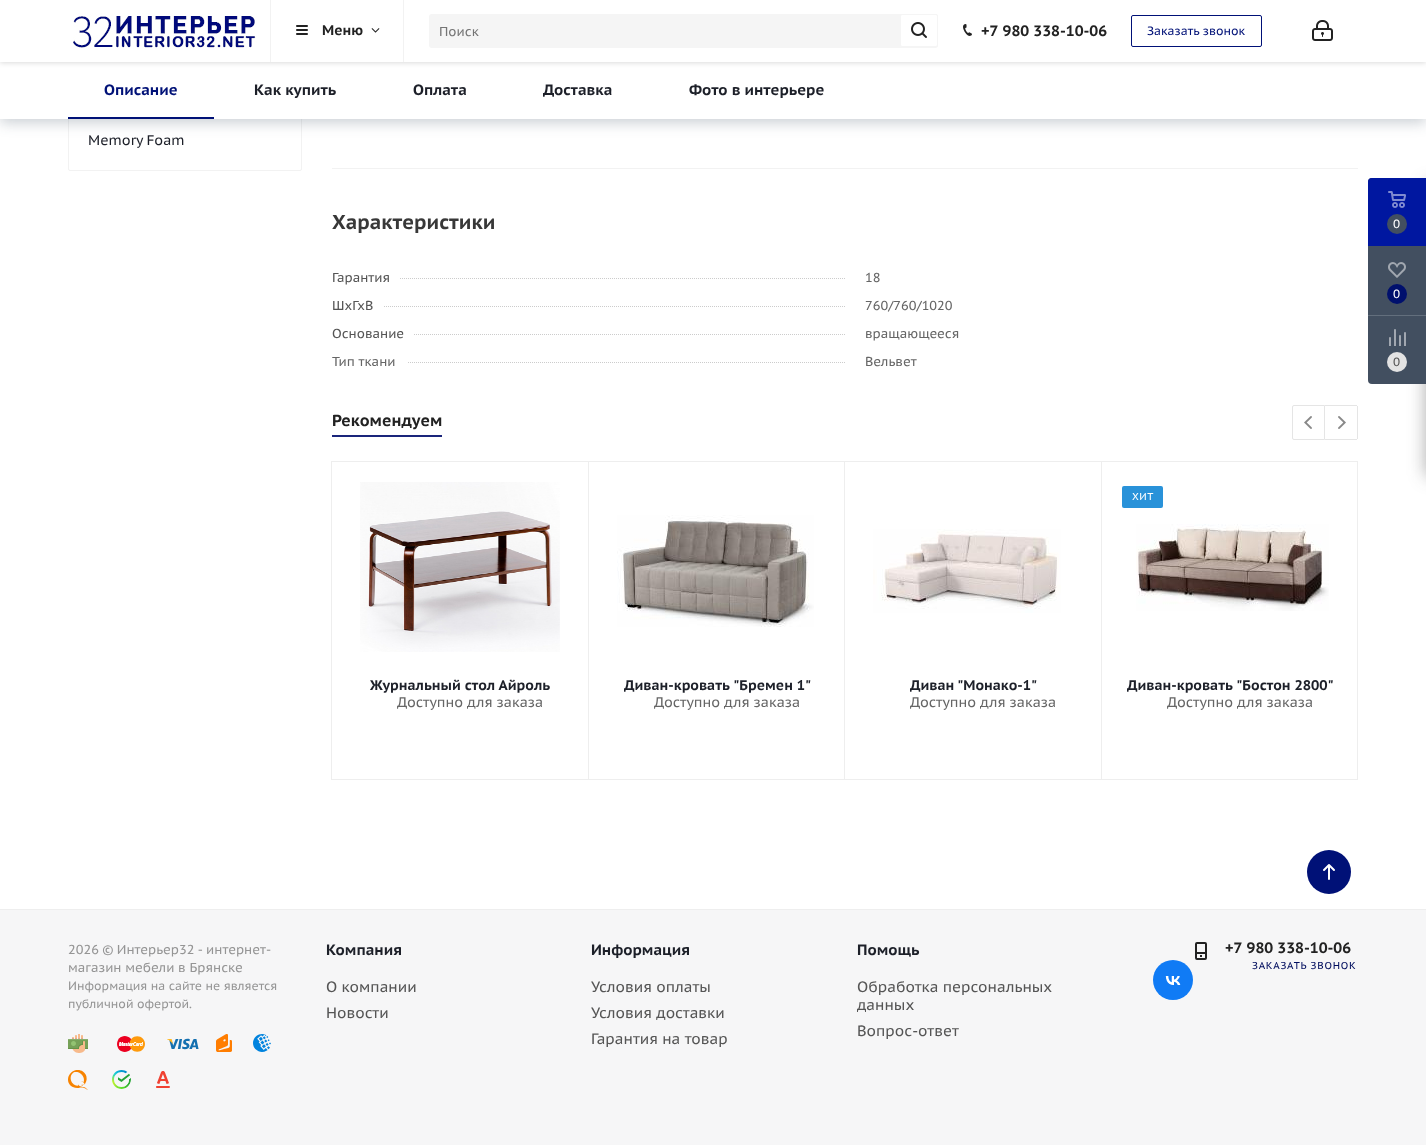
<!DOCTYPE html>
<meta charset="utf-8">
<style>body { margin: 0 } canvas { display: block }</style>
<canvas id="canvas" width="1426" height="1145"></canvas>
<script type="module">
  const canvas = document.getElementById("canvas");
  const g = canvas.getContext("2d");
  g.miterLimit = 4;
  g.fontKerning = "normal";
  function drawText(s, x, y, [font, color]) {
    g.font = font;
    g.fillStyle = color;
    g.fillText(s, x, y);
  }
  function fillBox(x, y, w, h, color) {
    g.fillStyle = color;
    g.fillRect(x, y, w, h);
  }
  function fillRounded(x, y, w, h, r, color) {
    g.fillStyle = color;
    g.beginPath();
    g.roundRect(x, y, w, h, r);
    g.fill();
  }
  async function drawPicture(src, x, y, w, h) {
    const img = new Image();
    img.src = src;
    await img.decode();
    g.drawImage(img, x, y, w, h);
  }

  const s1 = ["bold 14px PT Sans Caption", "#222222"];
  const s2 = ["13px PT Sans Caption", "#757575"];
  const s3 = ["bold 15px PT Sans Caption", "#222222"];
  const s4 = ["12px PT Sans Caption", "#001177"];
  const s5 = ["bold 15px PT Sans Caption", "#001177"];
  const s6 = ["bold 15px PT Sans Caption", "#1D2029"];
  const s7 = ["14px PT Sans Caption", "#1D2029"];
  const s8 = ["bold 20px PT Sans Caption", "#383838"];
  const s9 = ["13px PT Sans Caption", "#555555"];
  const s10 = ["13px PT Sans Caption", "#666666"];
  const s11 = ["bold 16px PT Sans Caption", "#222222"];
  const s12 = ["bold 14px PT Sans Caption", "#1D2029"];
  const s13 = ["14px PT Sans Caption", "#666666"];
  const s14 = ["10px PT Sans Caption", "#FFFFFF"];
  const s15 = ["12px PT Sans Caption", "#FFFFFF"];
  const s16 = ["12px PT Sans Caption", "#555555"];
  const s17 = ["13px PT Sans Caption", "#959595"];
  const s18 = ["12px PT Sans Caption", "#959595"];
  const s19 = ["15px PT Sans Caption", "#555555"];
  const s20 = ["10px PT Sans Caption", "#000D5E"];

  fillBox(0, 0, 1426, 1145, "#FFFFFF");
  g.beginPath();
  g.roundRect(68.5, -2.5, 233, 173, 1.5);
  g.strokeStyle = "#F2F2F2";
  g.stroke();
  g.fillStyle = "rgba(32, 54, 74, 0.23)";
  g.filter = "blur(7px)";
  g.beginPath();
  g.rect(0, 66, 1426, 57);
  g.fill();
  g.filter = "none";
  fillBox(0, 62, 1426, 57, "#FFFFFF");
  g.fillStyle = "rgba(0, 0, 0, 0.14)";
  g.filter = "blur(2.5px)";
  g.beginPath();
  g.rect(0, 1, 1426, 62);
  g.fill();
  g.filter = "none";
  fillBox(0, 0, 1426, 62, "#FFFFFF");
  fillBox(270, 0, 1, 62, "#F2F2F2");
  await drawPicture("pic1.png", 73, 13, 184, 37);
  fillBox(403, 0, 1, 62, "#F2F2F2");
  await drawPicture("pic2.png", 296, 25, 12, 10);
  drawText("Меню", 322, 35, s1);
  await drawPicture("pic3.png", 371, 28, 9, 5);
  fillRounded(429, 14, 509, 34, 3, "#F5F5F5");
  drawText("Поиск", 439, 36, s2);
  g.fillStyle = "#FFFFFF";
  g.beginPath();
  g.roundRect(900.5, 14.5, 37, 32, 1.5);
  g.fill();
  g.strokeStyle = "#F5F5F5";
  g.stroke();
  await drawPicture("pic4.png", 911, 22, 16, 16);
  await drawPicture("pic5.png", 963, 24, 9, 12);
  drawText("+7 980 338-10-06", 981, 36, s3);
  g.beginPath();
  g.roundRect(1131.5, 15.5, 130, 31, 1.5);
  g.strokeStyle = "#001177";
  g.stroke();
  drawText("Заказать звонок", 1147, 35, s4);
  await drawPicture("pic6.png", 1312, 20, 21, 21);
  drawText("Описание", 104, 95, s5);
  fillBox(68, 117, 146, 2, "#001177");
  drawText("Как купить", 254, 95, s6);
  drawText("Оплата", 413, 95, s6);
  drawText("Доставка", 543, 95, s6);
  drawText("Фото в интерьере", 689, 95, s6);
  g.wordSpacing = "-1px";
  drawText("Memory Foam", 88, 145, s7);
  fillBox(332, 168, 1026, 1, "#F2F2F2");
  g.wordSpacing = "0px";
  drawText("Характеристики", 332, 229, s8);
  await drawPicture("pic7.png", 400, 278, 445, 1);
  drawText("Гарантия", 332, 282, s9);
  drawText("18", 865, 282, s10);
  await drawPicture("pic8.png", 384, 306, 461, 1);
  drawText("ШхГхВ", 332, 310, s9);
  drawText("760/760/1020", 865, 310, s10);
  await drawPicture("pic9.png", 414, 334, 431, 1);
  drawText("Основание", 332, 338, s9);
  drawText("вращающееся", 865, 338, s10);
  await drawPicture("pic10.png", 408, 362, 437, 1);
  drawText("Тип ткани", 332, 366, s10);
  drawText("Вельвет", 865, 366, s10);
  fillBox(332, 435, 110, 2, "#1A257B");
  drawText("Рекомендуем", 332, 426, s11);
  g.beginPath();
  g.roundRect(1292.5, 405.5, 32, 34, [1.5, 0, 0, 1.5]);
  g.strokeStyle = "#E5E5E5";
  g.stroke();
  await drawPicture("pic11.png", 1304, 416, 8, 13);
  fillBox(1325, 405, 32, 1, "#E5E5E5");
  fillBox(1357, 406, 1, 33, "#E5E5E5");
  fillBox(1325, 439, 32, 1, "#E5E5E5");
  await drawPicture("pic12.png", 1338, 416, 8, 13);
  g.strokeStyle = "#EEEEEE";
  g.strokeRect(331.5, 461.5, 257, 318);
  await drawPicture("pic13.png", 360, 482, 200, 170);
  drawText("Журнальный стол Айроль", 370, 690, s12);
  drawText("Доступно для заказа", 397, 707, s13);
  g.strokeRect(588.5, 461.5, 256, 318);
  await drawPicture("pic14.png", 617, 515, 197, 112);
  drawText("Диван-кровать \"Бремен 1\"", 624, 690, s12);
  drawText("Доступно для заказа", 654, 707, s13);
  g.strokeRect(844.5, 461.5, 257, 318);
  await drawPicture("pic15.png", 873, 529, 188, 84);
  g.wordSpacing = "-1px";
  drawText("Диван \"Монако-1\"", 910, 690, s12);
  g.wordSpacing = "0px";
  drawText("Доступно для заказа", 910, 707, s13);
  g.strokeRect(1101.5, 461.5, 256, 318);
  fillRounded(1122, 486, 41, 22, 2, "#2992D9");
  g.letterSpacing = "0.5px";
  drawText("ХИТ", 1132, 500, s14);
  await drawPicture("pic16.png", 1136, 524, 193, 87);
  g.letterSpacing = "0px";
  drawText("Диван-кровать \"Бостон 2800\"", 1127, 690, s12);
  drawText("Доступно для заказа", 1167, 707, s13);
  g.save();
  g.beginPath();
  g.rect(322, 443, 1046, 402);
  g.clip();
  g.strokeRect(1357.5, 461.5, 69, 318);
  g.restore();
  fillBox(1358, 461, 10, 319, "#FFFFFF");
  g.fillStyle = "rgba(44, 44, 44, 0.4)";
  g.filter = "blur(9px)";
  g.beginPath();
  g.roundRect(1426, 184, 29, 292, 2);
  g.fill();
  g.filter = "none";
  g.fillStyle = "#424F60";
  g.beginPath();
  g.roundRect(1368, 178, 58, 206, [4, 0, 0, 4]);
  g.fill();
  g.fillStyle = "#0017A0";
  g.beginPath();
  g.roundRect(1368, 178, 58, 68, [4, 0, 0, 0]);
  g.fill();
  await drawPicture("pic17.png", 1388, 191, 18, 17);
  g.fillStyle = "#424F60";
  g.beginPath();
  g.arc(1397, 224, 10, 0, Math.PI * 2);
  g.fill();
  drawText("0", 1393, 228, s15);
  await drawPicture("pic18.png", 1388, 262, 18, 16);
  g.fillStyle = "#00106D";
  g.beginPath();
  g.arc(1397, 294, 10, 0, Math.PI * 2);
  g.fill();
  drawText("0", 1393, 298, s15);
  fillBox(1368, 315, 58, 1, "#636F7D");
  await drawPicture("pic19.png", 1389, 329, 17, 17);
  g.fillStyle = "#E3E3E3";
  g.beginPath();
  g.arc(1397, 362, 10, 0, Math.PI * 2);
  g.fill();
  drawText("0", 1393, 366, s16);
  g.fillStyle = "#001177";
  g.beginPath();
  g.arc(1329, 872, 22, 0, Math.PI * 2);
  g.fill();
  g.beginPath();
  g.moveTo(1329, 865);
  g.lineTo(1329, 879);
  g.moveTo(1324, 870);
  g.lineTo(1329, 865);
  g.lineTo(1334, 870);
  g.strokeStyle = "#FFFFFF";
  g.lineWidth = 2;
  g.lineCap = "round";
  g.lineJoin = "round";
  g.stroke();
  fillBox(0, 909, 1426, 1, "#EEEEEE");
  fillBox(0, 910, 1426, 235, "#F6F6F7");
  g.wordSpacing = "-0.5px";
  drawText("2026 © Интерьер32 - интернет-", 68, 954, s17);
  g.wordSpacing = "0px";
  drawText("магазин мебели в Брянске", 68, 972, s17);
  drawText("Информация на сайте не является", 68, 990, s18);
  drawText("публичной офертой.", 68, 1008, s18);
  await drawPicture("pic20.png", 68, 1034, 20, 19);
  await drawPicture("pic21.png", 117, 1036, 28, 16);
  await drawPicture("pic22.png", 167, 1038, 32, 12);
  await drawPicture("pic23.png", 216, 1034, 16, 18);
  await drawPicture("pic24.png", 253, 1034, 18, 18);
  await drawPicture("pic25.png", 68, 1070, 20, 20);
  await drawPicture("pic26.png", 112, 1070, 19, 19);
  await drawPicture("pic27.png", 156, 1071, 14, 17);
  drawText("Компания", 326, 955, s6);
  drawText("О компании", 326, 992, s19);
  drawText("Новости", 326, 1018, s19);
  drawText("Информация", 591, 955, s6);
  drawText("Условия оплаты", 591, 992, s19);
  drawText("Условия доставки", 591, 1018, s19);
  drawText("Гарантия на товар", 591, 1044, s19);
  drawText("Помощь", 857, 955, s6);
  drawText("Обработка персональных", 857, 992, s19);
  drawText("данных", 857, 1010, s19);
  drawText("Вопрос-ответ", 857, 1036, s19);
  await drawPicture("pic28.png", 1195, 942, 12, 18);
  drawText("+7 980 338-10-06", 1225, 953, s3);
  g.letterSpacing = "0.75px";
  drawText("ЗАКАЗАТЬ ЗВОНОК", 1252, 969, s20);
  await drawPicture("pic29.png", 1153, 960, 40, 40);
</script>
